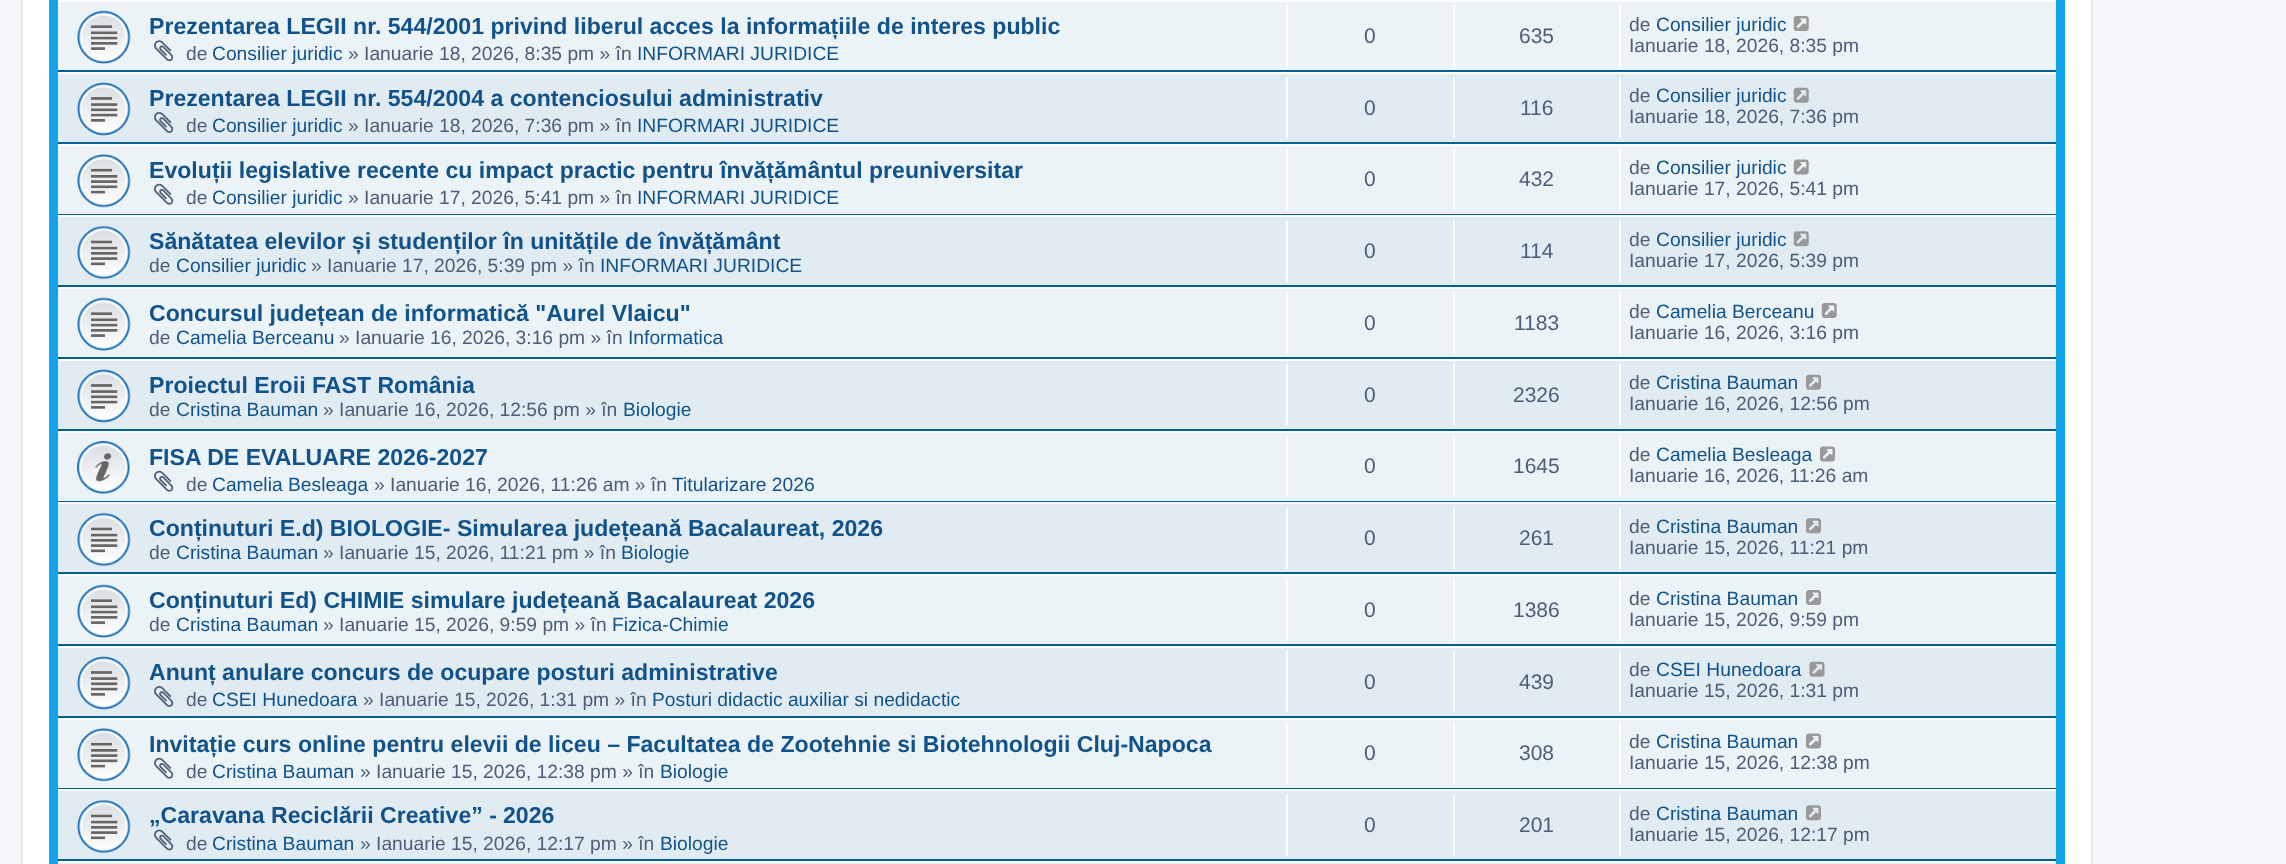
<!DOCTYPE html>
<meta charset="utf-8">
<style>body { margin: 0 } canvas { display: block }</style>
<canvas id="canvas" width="2286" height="864"></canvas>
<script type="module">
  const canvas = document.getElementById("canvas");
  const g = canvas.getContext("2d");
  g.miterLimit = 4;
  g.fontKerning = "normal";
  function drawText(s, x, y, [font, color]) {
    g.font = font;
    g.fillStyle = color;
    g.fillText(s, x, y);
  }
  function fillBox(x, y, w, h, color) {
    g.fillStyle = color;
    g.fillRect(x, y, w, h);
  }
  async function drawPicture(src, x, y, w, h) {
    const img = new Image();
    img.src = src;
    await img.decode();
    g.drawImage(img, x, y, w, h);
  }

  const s1 = ["bold 23.1px Liberation Sans", "#105289"];
  const s2 = ["19.25px Liberation Sans", "#4C5D77"];
  const s3 = ["19.25px Liberation Sans", "#105289"];
  const s4 = ["21px Liberation Sans", "#4C5D77"];

  fillBox(0, 0, 2286, 864, "#F5F7FA");
  g.fillStyle = "#FFFFFF";
  g.beginPath();
  g.rect(22, -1, 2070, 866);
  g.fill();
  g.strokeStyle = "#E6E9ED";
  g.lineWidth = 2;
  g.stroke();
  fillBox(49, 0, 2016, 864, "#12A3EB");
  fillBox(58, 2, 1998, 68, "#ECF3F7");
  fillBox(58, 0, 1998, 2, "#FFFFFF");
  fillBox(58, 70, 1998, 2, "#00608F");
  await drawPicture("pic1.png", 77, 10, 54, 54);
  drawText("Prezentarea LEGII nr. 544/2001 privind liberul acces la informațiile de interes public", 149, 34, s1);
  await drawPicture("pic2.png", 154, 40, 20, 22);
  drawText("de", 186, 60, s2);
  drawText("Consilier juridic", 212, 60, s3);
  drawText("» Ianuarie 18, 2026, 8:35 pm » în", 348, 60, s2);
  drawText("INFORMARI JURIDICE", 637, 60, s3);
  fillBox(1286, 5, 2, 62, "#FFFFFF");
  drawText("0", 1364, 43, s4);
  fillBox(1453, 5, 2, 62, "#FFFFFF");
  drawText("635", 1519, 43, s4);
  fillBox(1619, 5, 2, 62, "#FFFFFF");
  drawText("de", 1629, 31, s2);
  drawText("Consilier juridic", 1656, 31, s3);
  await drawPicture("pic3.png", 1793, 16, 16, 15);
  drawText("Ianuarie 18, 2026, 8:35 pm", 1629, 52, s2);
  fillBox(58, 74, 1998, 68, "#E1EBF2");
  fillBox(58, 72, 1998, 2, "#FFFFFF");
  fillBox(58, 142, 1998, 2, "#00608F");
  await drawPicture("pic4.png", 77, 82, 54, 54);
  drawText("Prezentarea LEGII nr. 554/2004 a contenciosului administrativ", 149, 106, s1);
  await drawPicture("pic5.png", 154, 112, 20, 21);
  drawText("de", 186, 132, s2);
  drawText("Consilier juridic", 212, 132, s3);
  drawText("» Ianuarie 18, 2026, 7:36 pm » în", 348, 132, s2);
  drawText("INFORMARI JURIDICE", 637, 132, s3);
  fillBox(1286, 77, 2, 61, "#FFFFFF");
  drawText("0", 1364, 115, s4);
  fillBox(1453, 77, 2, 61, "#FFFFFF");
  drawText("116", 1520, 115, s4);
  fillBox(1619, 77, 2, 61, "#FFFFFF");
  drawText("de", 1629, 102, s2);
  drawText("Consilier juridic", 1656, 102, s3);
  await drawPicture("pic6.png", 1793, 87, 16, 16);
  drawText("Ianuarie 18, 2026, 7:36 pm", 1629, 123, s2);
  fillBox(58, 146, 1998, 68, "#ECF3F7");
  fillBox(58, 144, 1998, 2, "#FFFFFF");
  fillBox(58, 214, 1998, 1, "#00608F");
  await drawPicture("pic7.png", 77, 154, 54, 54);
  await drawPicture("pic8.png", 154, 183, 20, 22);
  drawText("Evoluții legislative recente cu impact practic pentru învățământul preuniversitar", 149, 178, s1);
  drawText("de", 186, 204, s2);
  drawText("Consilier juridic", 212, 204, s3);
  drawText("» Ianuarie 17, 2026, 5:41 pm » în", 348, 204, s2);
  drawText("INFORMARI JURIDICE", 637, 204, s3);
  fillBox(1286, 149, 2, 61, "#FFFFFF");
  drawText("0", 1364, 186, s4);
  fillBox(1453, 149, 2, 61, "#FFFFFF");
  drawText("432", 1519, 186, s4);
  fillBox(1619, 149, 2, 61, "#FFFFFF");
  drawText("de", 1629, 174, s2);
  drawText("Consilier juridic", 1656, 174, s3);
  await drawPicture("pic9.png", 1793, 159, 16, 16);
  drawText("Ianuarie 17, 2026, 5:41 pm", 1629, 195, s2);
  fillBox(58, 217, 1998, 68, "#E1EBF2");
  fillBox(58, 215, 1998, 2, "#FFFFFF");
  fillBox(58, 285, 1998, 2, "#00608F");
  await drawPicture("pic10.png", 77, 225, 54, 55);
  drawText("Sănătatea elevilor și studenților în unitățile de învățământ", 149, 249, s1);
  drawText("de", 149, 272, s2);
  drawText("Consilier juridic", 176, 272, s3);
  drawText("» Ianuarie 17, 2026, 5:39 pm » în", 311, 272, s2);
  drawText("INFORMARI JURIDICE", 600, 272, s3);
  fillBox(1286, 221, 2, 61, "#FFFFFF");
  drawText("0", 1364, 258, s4);
  fillBox(1453, 221, 2, 61, "#FFFFFF");
  drawText("114", 1520, 258, s4);
  fillBox(1619, 221, 2, 61, "#FFFFFF");
  drawText("de", 1629, 246, s2);
  drawText("Consilier juridic", 1656, 246, s3);
  await drawPicture("pic11.png", 1793, 231, 16, 16);
  drawText("Ianuarie 17, 2026, 5:39 pm", 1629, 267, s2);
  fillBox(58, 289, 1998, 68, "#ECF3F7");
  fillBox(58, 287, 1998, 2, "#FFFFFF");
  fillBox(58, 357, 1998, 2, "#00608F");
  await drawPicture("pic1.png", 77, 297, 54, 54);
  drawText("Concursul județean de informatică \"Aurel Vlaicu\"", 149, 321, s1);
  drawText("de", 149, 344, s2);
  drawText("Camelia Berceanu", 176, 344, s3);
  drawText("» Ianuarie 16, 2026, 3:16 pm » în", 339, 344, s2);
  drawText("Informatica", 628, 344, s3);
  fillBox(1286, 292, 2, 62, "#FFFFFF");
  drawText("0", 1364, 330, s4);
  fillBox(1453, 292, 2, 62, "#FFFFFF");
  drawText("1183", 1514, 330, s4);
  fillBox(1619, 292, 2, 62, "#FFFFFF");
  drawText("de", 1629, 318, s2);
  drawText("Camelia Berceanu", 1656, 318, s3);
  await drawPicture("pic3.png", 1821, 303, 16, 15);
  drawText("Ianuarie 16, 2026, 3:16 pm", 1629, 339, s2);
  fillBox(58, 361, 1998, 68, "#E1EBF2");
  fillBox(58, 359, 1998, 2, "#FFFFFF");
  fillBox(58, 429, 1998, 2, "#00608F");
  await drawPicture("pic4.png", 77, 369, 54, 54);
  drawText("Proiectul Eroii FAST România", 149, 393, s1);
  drawText("de", 149, 416, s2);
  drawText("Cristina Bauman", 176, 416, s3);
  drawText("» Ianuarie 16, 2026, 12:56 pm » în", 323, 416, s2);
  drawText("Biologie", 623, 416, s3);
  fillBox(1286, 364, 2, 61, "#FFFFFF");
  drawText("0", 1364, 402, s4);
  fillBox(1453, 364, 2, 61, "#FFFFFF");
  drawText("2326", 1513, 402, s4);
  fillBox(1619, 364, 2, 61, "#FFFFFF");
  drawText("de", 1629, 389, s2);
  drawText("Cristina Bauman", 1656, 389, s3);
  await drawPicture("pic12.png", 1806, 374, 15, 16);
  drawText("Ianuarie 16, 2026, 12:56 pm", 1629, 410, s2);
  fillBox(58, 433, 1998, 68, "#ECF3F7");
  fillBox(58, 431, 1998, 2, "#FFFFFF");
  fillBox(58, 501, 1998, 1, "#00608F");
  await drawPicture("pic13.png", 77, 441, 53, 53);
  drawText("FISA DE EVALUARE 2026-2027", 149, 465, s1);
  await drawPicture("pic8.png", 154, 470, 20, 22);
  drawText("de", 186, 491, s2);
  drawText("Camelia Besleaga", 212, 491, s3);
  drawText("» Ianuarie 16, 2026, 11:26 am » în", 374, 491, s2);
  drawText("Titularizare 2026", 672, 491, s3);
  fillBox(1286, 436, 2, 61, "#FFFFFF");
  drawText("0", 1364, 473, s4);
  fillBox(1453, 436, 2, 61, "#FFFFFF");
  drawText("1645", 1513, 473, s4);
  fillBox(1619, 436, 2, 61, "#FFFFFF");
  drawText("de", 1629, 461, s2);
  drawText("Camelia Besleaga", 1656, 461, s3);
  await drawPicture("pic14.png", 1820, 446, 15, 16);
  drawText("Ianuarie 16, 2026, 11:26 am", 1629, 482, s2);
  fillBox(58, 504, 1998, 68, "#E1EBF2");
  fillBox(58, 502, 1998, 2, "#FFFFFF");
  fillBox(58, 572, 1998, 2, "#00608F");
  await drawPicture("pic10.png", 77, 512, 54, 55);
  drawText("Conținuturi E.d) BIOLOGIE- Simularea județeană Bacalaureat, 2026", 149, 536, s1);
  drawText("de", 149, 559, s2);
  drawText("Cristina Bauman", 176, 559, s3);
  drawText("» Ianuarie 15, 2026, 11:21 pm » în", 323, 559, s2);
  drawText("Biologie", 621, 559, s3);
  fillBox(1286, 508, 2, 61, "#FFFFFF");
  drawText("0", 1364, 545, s4);
  fillBox(1453, 508, 2, 61, "#FFFFFF");
  drawText("261", 1519, 545, s4);
  fillBox(1619, 508, 2, 61, "#FFFFFF");
  drawText("de", 1629, 533, s2);
  drawText("Cristina Bauman", 1656, 533, s3);
  await drawPicture("pic15.png", 1806, 518, 15, 16);
  drawText("Ianuarie 15, 2026, 11:21 pm", 1629, 554, s2);
  fillBox(58, 576, 1998, 68, "#ECF3F7");
  fillBox(58, 574, 1998, 2, "#FFFFFF");
  fillBox(58, 644, 1998, 2, "#00608F");
  await drawPicture("pic1.png", 77, 584, 54, 54);
  drawText("Conținuturi Ed) CHIMIE simulare județeană Bacalaureat 2026", 149, 608, s1);
  drawText("de", 149, 631, s2);
  drawText("Cristina Bauman", 176, 631, s3);
  drawText("» Ianuarie 15, 2026, 9:59 pm » în", 323, 631, s2);
  drawText("Fizica-Chimie", 612, 631, s3);
  fillBox(1286, 579, 2, 62, "#FFFFFF");
  drawText("0", 1364, 617, s4);
  fillBox(1453, 579, 2, 62, "#FFFFFF");
  drawText("1386", 1513, 617, s4);
  fillBox(1619, 579, 2, 62, "#FFFFFF");
  drawText("de", 1629, 605, s2);
  drawText("Cristina Bauman", 1656, 605, s3);
  await drawPicture("pic16.png", 1806, 590, 15, 15);
  drawText("Ianuarie 15, 2026, 9:59 pm", 1629, 626, s2);
  fillBox(58, 648, 1998, 68, "#E1EBF2");
  fillBox(58, 646, 1998, 2, "#FFFFFF");
  fillBox(58, 716, 1998, 2, "#00608F");
  await drawPicture("pic4.png", 77, 656, 54, 54);
  drawText("Anunț anulare concurs de ocupare posturi administrative", 149, 680, s1);
  await drawPicture("pic5.png", 154, 686, 20, 21);
  drawText("de", 186, 706, s2);
  drawText("CSEI Hunedoara", 212, 706, s3);
  drawText("» Ianuarie 15, 2026, 1:31 pm » în", 363, 706, s2);
  drawText("Posturi didactic auxiliar si nedidactic", 652, 706, s3);
  fillBox(1286, 651, 2, 61, "#FFFFFF");
  drawText("0", 1364, 689, s4);
  fillBox(1453, 651, 2, 61, "#FFFFFF");
  drawText("439", 1519, 689, s4);
  fillBox(1619, 651, 2, 61, "#FFFFFF");
  drawText("de", 1629, 676, s2);
  drawText("CSEI Hunedoara", 1656, 676, s3);
  await drawPicture("pic17.png", 1809, 661, 16, 16);
  drawText("Ianuarie 15, 2026, 1:31 pm", 1629, 697, s2);
  fillBox(58, 720, 1998, 68, "#ECF3F7");
  fillBox(58, 718, 1998, 2, "#FFFFFF");
  fillBox(58, 788, 1998, 1, "#00608F");
  await drawPicture("pic7.png", 77, 728, 54, 54);
  await drawPicture("pic8.png", 154, 757, 20, 22);
  drawText("Invitație curs online pentru elevii de liceu – Facultatea de Zootehnie si Biotehnologii Cluj-Napoca", 149, 752, s1);
  drawText("de", 186, 778, s2);
  drawText("Cristina Bauman", 212, 778, s3);
  drawText("» Ianuarie 15, 2026, 12:38 pm » în", 360, 778, s2);
  drawText("Biologie", 660, 778, s3);
  fillBox(1286, 723, 2, 61, "#FFFFFF");
  drawText("0", 1364, 760, s4);
  fillBox(1453, 723, 2, 61, "#FFFFFF");
  drawText("308", 1519, 760, s4);
  fillBox(1619, 723, 2, 61, "#FFFFFF");
  drawText("de", 1629, 748, s2);
  drawText("Cristina Bauman", 1656, 748, s3);
  await drawPicture("pic14.png", 1806, 733, 15, 16);
  drawText("Ianuarie 15, 2026, 12:38 pm", 1629, 769, s2);
  fillBox(58, 791, 1998, 68, "#E1EBF2");
  fillBox(58, 789, 1998, 2, "#FFFFFF");
  fillBox(58, 859, 1998, 2, "#00608F");
  await drawPicture("pic10.png", 77, 799, 54, 55);
  drawText("„Caravana Reciclării Creative” -", 149, 823, s1);
  drawText("2026", 503, 823, s1);
  await drawPicture("pic18.png", 154, 829, 20, 22);
  drawText("de", 186, 850, s2);
  drawText("Cristina Bauman", 212, 850, s3);
  drawText("» Ianuarie 15, 2026, 12:17 pm » în", 360, 850, s2);
  drawText("Biologie", 660, 850, s3);
  fillBox(1286, 795, 2, 61, "#FFFFFF");
  drawText("0", 1364, 832, s4);
  fillBox(1453, 795, 2, 61, "#FFFFFF");
  drawText("201", 1519, 832, s4);
  fillBox(1619, 795, 2, 61, "#FFFFFF");
  drawText("de", 1629, 820, s2);
  drawText("Cristina Bauman", 1656, 820, s3);
  await drawPicture("pic15.png", 1806, 805, 15, 16);
  drawText("Ianuarie 15, 2026, 12:17 pm", 1629, 841, s2);
  fillBox(58, 863, 1998, 1, "#ECF3F7");
  fillBox(58, 861, 1998, 2, "#FFFFFF");
</script>
